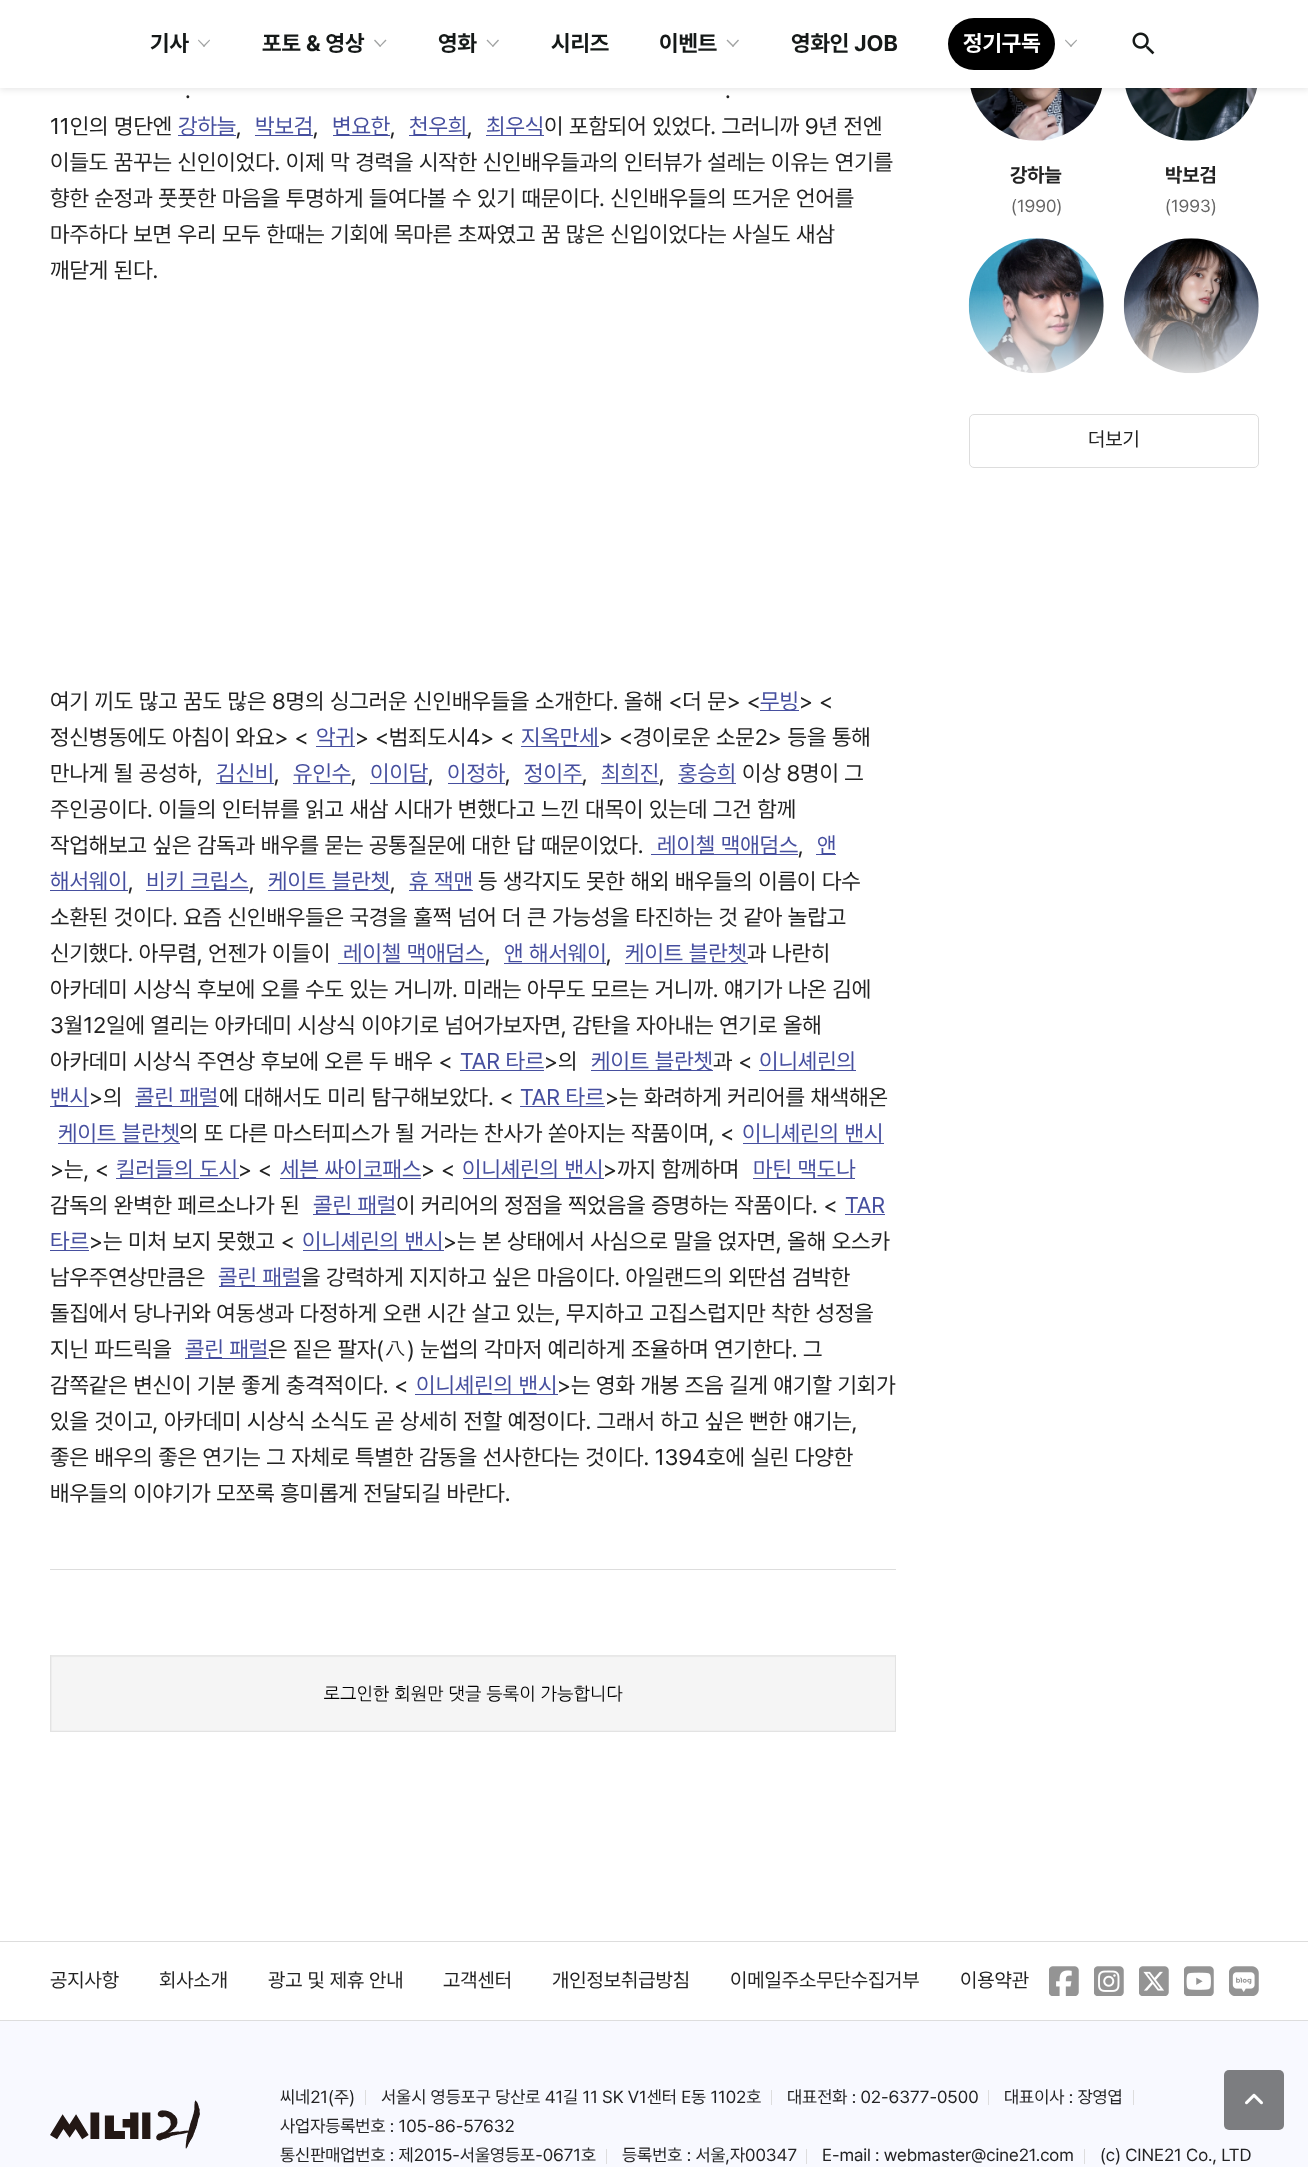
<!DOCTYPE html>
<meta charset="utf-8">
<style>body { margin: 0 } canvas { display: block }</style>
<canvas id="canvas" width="1308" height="2167"></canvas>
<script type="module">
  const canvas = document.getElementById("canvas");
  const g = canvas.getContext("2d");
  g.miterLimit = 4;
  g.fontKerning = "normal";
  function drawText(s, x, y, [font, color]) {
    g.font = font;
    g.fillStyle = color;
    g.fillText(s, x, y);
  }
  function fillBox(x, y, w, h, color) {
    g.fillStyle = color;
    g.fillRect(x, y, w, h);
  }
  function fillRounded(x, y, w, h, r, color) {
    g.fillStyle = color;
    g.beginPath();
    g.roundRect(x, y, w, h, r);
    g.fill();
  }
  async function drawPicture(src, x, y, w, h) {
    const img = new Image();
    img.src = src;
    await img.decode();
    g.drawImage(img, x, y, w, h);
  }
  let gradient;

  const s1 = ["bold 22.5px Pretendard", "#151918"];
  const s2 = ["bold 22.5px Pretendard", "#FFFFFF"];
  const s3 = ["22.5px Pretendard", "#222222"];
  const s4 = ["22.5px Pretendard", "#464F9F"];
  const s5 = ["22.5px Dotum", "#222222"];
  const s6 = ["bold 20px Pretendard", "#222222"];
  const s7 = ["17.5px Pretendard", "#666666"];
  const s8 = ["20px Pretendard", "#222222"];
  const s9 = ["17.5px Pretendard", "#222222"];

  fillBox(0, 0, 1308, 2167, "#FFFFFF");
  await drawPicture("pic3.png", 970, 88, 132, 53);
  await drawPicture("pic4.png", 1125, 88, 132, 53);
  g.fillStyle = "rgba(0, 0, 0, 0.09)";
  g.filter = "blur(3px)";
  g.beginPath();
  g.rect(0, 3, 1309, 87);
  g.fill();
  g.filter = "none";
  fillBox(0, 0, 1308, 88, "#FFFFFF");
  g.letterSpacing = "-0.05px";
  drawText("기사", 150, 51, s1);
  g.fillStyle = "#A1A3A3";
  g.beginPath();
  g.moveTo(203, 46);
  g.lineTo(209.5, 39.5);
  g.lineTo(210, 40.5);
  g.lineTo(204, 47);
  g.closePath();
  g.fill();
  g.beginPath();
  g.moveTo(198, 40.5);
  g.lineTo(198.5, 39.5);
  g.lineTo(205, 46);
  g.lineTo(204, 47);
  g.closePath();
  g.fill();
  drawText("포토 & 영상", 262, 51, s1);
  g.fillStyle = "#A1A3A3";
  g.beginPath();
  g.moveTo(379.5, 46);
  g.lineTo(385.5, 39.5);
  g.lineTo(386.5, 40.5);
  g.lineTo(380, 47);
  g.closePath();
  g.fill();
  g.beginPath();
  g.moveTo(374, 40.5);
  g.lineTo(375, 39.5);
  g.lineTo(381, 46);
  g.lineTo(380, 47);
  g.closePath();
  g.fill();
  drawText("영화", 438, 51, s1);
  g.fillStyle = "#A1A3A3";
  g.beginPath();
  g.moveTo(492, 46);
  g.lineTo(498, 39.5);
  g.lineTo(499, 40.5);
  g.lineTo(493, 47);
  g.closePath();
  g.fill();
  g.beginPath();
  g.moveTo(486.5, 40.5);
  g.lineTo(487.5, 39.5);
  g.lineTo(493.5, 46);
  g.lineTo(493, 47);
  g.closePath();
  g.fill();
  drawText("시리즈", 551, 51, s1);
  drawText("이벤트", 659, 51, s1);
  g.fillStyle = "#A1A3A3";
  g.beginPath();
  g.moveTo(732, 46);
  g.lineTo(738, 39.5);
  g.lineTo(739, 40.5);
  g.lineTo(733, 47);
  g.closePath();
  g.fill();
  g.beginPath();
  g.moveTo(726.5, 40.5);
  g.lineTo(727.5, 39.5);
  g.lineTo(734, 46);
  g.lineTo(733, 47);
  g.closePath();
  g.fill();
  drawText("영화인 JOB", 791, 51, s1);
  fillRounded(948, 18, 107, 52, 26, "#000000");
  drawText("정기구독", 963, 51, s2);
  g.fillStyle = "#A1A3A3";
  g.beginPath();
  g.moveTo(1070, 46);
  g.lineTo(1076.5, 39.5);
  g.lineTo(1077, 40.5);
  g.lineTo(1071, 47);
  g.closePath();
  g.fill();
  g.beginPath();
  g.moveTo(1065, 40.5);
  g.lineTo(1065.5, 39.5);
  g.lineTo(1072, 46);
  g.lineTo(1071, 47);
  g.closePath();
  g.fill();
  await drawPicture("pic1.png", 1132, 32, 23, 23);
  fillBox(50, 1569, 846, 1, "#DDDDDD");
  drawText(".", 185, 98, s3);
  drawText(".", 725, 98, s3);
  drawText("11인의 명단엔", 50, 134, s3);
  fillBox(178, 135, 58, 1, "#464F9F");
  drawText("강하늘", 178, 134, s4);
  drawText(",", 236, 134, s3);
  fillBox(255, 135, 58, 1, "#464F9F");
  drawText("박보검", 255, 134, s4);
  drawText(",", 313, 134, s3);
  fillBox(333, 135, 57, 1, "#464F9F");
  drawText("변요한", 332, 134, s4);
  drawText(",", 390, 134, s3);
  fillBox(409, 135, 59, 1, "#464F9F");
  drawText("천우희", 409, 134, s4);
  drawText(",", 467, 134, s3);
  fillBox(486, 135, 58, 1, "#464F9F");
  drawText("최우식", 486, 134, s4);
  drawText("이 포함되어 있었다. 그러니까 9년 전엔", 544, 134, s3);
  drawText("이들도 꿈꾸는 신인이었다. 이제 막 경력을 시작한 신인배우들과의 인터뷰가 설레는 이유는 연기를", 50, 170, s3);
  drawText("향한 순정과 풋풋한 마음을 투명하게 들여다볼 수 있기 때문이다. 신인배우들의 뜨거운 언어를", 50, 206, s3);
  drawText("마주하다 보면 우리 모두 한때는 기회에 목마른 초짜였고 꿈 많은 신입이었다는 사실도 새삼", 50, 242, s3);
  drawText("깨닫게 된다.", 50, 278, s3);
  drawText("여기 끼도 많고 꿈도 많은 8명의 싱그러운 신인배우들을 소개한다. 올해 <더 문> <", 50, 709, s3);
  fillBox(760, 710, 39, 1, "#464F9F");
  drawText("무빙", 760, 709, s4);
  drawText("> <", 799, 709, s3);
  drawText("정신병동에도 아침이 와요> <", 50, 745, s3);
  fillBox(316, 746, 39, 1, "#464F9F");
  drawText("악귀", 316, 745, s4);
  drawText("> <범죄도시4> <", 355, 745, s3);
  fillBox(521, 746, 78, 1, "#464F9F");
  drawText("지옥만세", 521, 745, s4);
  drawText("> <경이로운 소문2> 등을 통해", 599, 745, s3);
  drawText("만나게 될 공성하,", 50, 781, s3);
  drawText("김신비", 216, 781, s4);
  fillBox(216, 783, 58, 1, "#464F9F");
  drawText(",", 274, 781, s3);
  drawText("유인수", 293, 781, s4);
  fillBox(293, 783, 58, 1, "#464F9F");
  drawText(",", 351, 781, s3);
  drawText("이이담", 370, 781, s4);
  fillBox(370, 783, 58, 1, "#464F9F");
  drawText(",", 428, 781, s3);
  drawText("이정하", 447, 781, s4);
  fillBox(448, 783, 57, 1, "#464F9F");
  drawText(",", 505, 781, s3);
  drawText("정이주", 524, 781, s4);
  fillBox(524, 783, 59, 1, "#464F9F");
  drawText(",", 582, 781, s3);
  drawText("최희진", 601, 781, s4);
  fillBox(601, 783, 58, 1, "#464F9F");
  drawText(",", 659, 781, s3);
  drawText("홍승희", 678, 781, s4);
  fillBox(678, 783, 58, 1, "#464F9F");
  drawText("이상 8명이 그", 742, 781, s3);
  drawText("주인공이다. 이들의 인터뷰를 읽고 새삼 시대가 변했다고 느낀 대목이 있는데 그건 함께", 50, 817, s3);
  drawText("작업해보고 싶은 감독과 배우를 묻는 공통질문에 대한 답 때문이었다.", 50, 853, s3);
  fillBox(651, 854, 147, 1, "#464F9F");
  drawText("레이첼 맥애덤스", 657, 853, s4);
  drawText(",", 798, 853, s3);
  fillBox(816, 854, 20, 1, "#464F9F");
  drawText("앤", 817, 853, s4);
  fillBox(50, 890, 78, 1, "#464F9F");
  drawText("해서웨이", 50, 889, s4);
  drawText(",", 128, 889, s3);
  fillBox(146, 890, 103, 1, "#464F9F");
  drawText("비키 크립스", 146, 889, s4);
  drawText(",", 249, 889, s3);
  fillBox(268, 890, 122, 1, "#464F9F");
  drawText("케이트 블란쳇", 268, 889, s4);
  drawText(",", 390, 889, s3);
  fillBox(409, 890, 64, 1, "#464F9F");
  drawText("휴 잭맨", 409, 889, s4);
  drawText("등 생각지도 못한 해외 배우들의 이름이 다수", 478, 889, s3);
  drawText("소환된 것이다. 요즘 신인배우들은 국경을 훌쩍 넘어 더 큰 가능성을 타진하는 것 같아 놀랍고", 50, 925, s3);
  drawText("신기했다. 아무렴, 언젠가 이들이", 50, 961, s3);
  drawText("레이첼 맥애덤스", 343, 961, s4);
  fillBox(338, 963, 147, 1, "#464F9F");
  drawText(",", 485, 961, s3);
  drawText("앤 해서웨이", 504, 961, s4);
  fillBox(504, 963, 102, 1, "#464F9F");
  drawText(",", 606, 961, s3);
  drawText("케이트 블란쳇", 625, 961, s4);
  fillBox(625, 963, 123, 1, "#464F9F");
  drawText("과 나란히", 747, 961, s3);
  drawText("아카데미 시상식 후보에 오를 수도 있는 거니까. 미래는 아무도 모르는 거니까. 얘기가 나온 김에", 50, 997, s3);
  drawText("3월12일에 열리는 아카데미 시상식 이야기로 넘어가보자면, 감탄을 자아내는 연기로 올해", 50, 1033, s3);
  drawText("아카데미 시상식 주연상 후보에 오른 두 배우 <", 50, 1069, s3);
  fillBox(460, 1070, 84, 1, "#464F9F");
  drawText("TAR 타르", 460, 1069, s4);
  drawText(">의", 544, 1069, s3);
  fillBox(591, 1070, 122, 1, "#464F9F");
  drawText("케이트 블란쳇", 591, 1069, s4);
  drawText("과 <", 713, 1069, s3);
  fillBox(759, 1070, 97, 1, "#464F9F");
  drawText("이니셰린의", 759, 1069, s4);
  fillBox(50, 1106, 39, 1, "#464F9F");
  drawText("밴시", 50, 1105, s4);
  drawText(">의", 89, 1105, s3);
  fillBox(135, 1106, 84, 1, "#464F9F");
  drawText("콜린 패럴", 135, 1105, s4);
  drawText("에 대해서도 미리 탐구해보았다. <", 219, 1105, s3);
  fillBox(520, 1106, 85, 1, "#464F9F");
  drawText("TAR 타르", 520, 1105, s4);
  drawText(">는 화려하게 커리어를 채색해온", 605, 1105, s3);
  drawText("케이트 블란쳇", 58, 1141, s4);
  fillBox(58, 1143, 122, 1, "#464F9F");
  drawText("의 또 다른 마스터피스가 될 거라는 찬사가 쏟아지는 작품이며, <", 179, 1141, s3);
  drawText("이니셰린의 밴시", 742, 1141, s4);
  fillBox(743, 1143, 141, 1, "#464F9F");
  drawText(">는, <", 50, 1177, s3);
  fillBox(116, 1178, 123, 1, "#464F9F");
  drawText("킬러들의 도시", 116, 1177, s4);
  drawText("> <", 238, 1177, s3);
  fillBox(280, 1178, 141, 1, "#464F9F");
  drawText("세븐 싸이코패스", 280, 1177, s4);
  drawText("> <", 421, 1177, s3);
  fillBox(463, 1178, 141, 1, "#464F9F");
  drawText("이니셰린의 밴시", 462, 1177, s4);
  drawText(">까지 함께하며", 603, 1177, s3);
  fillBox(753, 1178, 102, 1, "#464F9F");
  drawText("마틴 맥도나", 753, 1177, s4);
  drawText("감독의 완벽한 페르소나가 된", 50, 1213, s3);
  fillBox(313, 1214, 83, 1, "#464F9F");
  drawText("콜린 패럴", 313, 1213, s4);
  drawText("이 커리어의 정점을 찍었음을 증명하는 작품이다. <", 396, 1213, s3);
  drawText("TAR", 845, 1213, s4);
  fillBox(845, 1214, 40, 1, "#464F9F");
  fillBox(50, 1250, 39, 1, "#464F9F");
  drawText("타르", 50, 1249, s4);
  drawText(">는 미처 보지 못했고 <", 89, 1249, s3);
  fillBox(303, 1250, 141, 1, "#464F9F");
  drawText("이니셰린의 밴시", 302, 1249, s4);
  drawText(">는 본 상태에서 사심으로 말을 얹자면, 올해 오스카", 443, 1249, s3);
  drawText("남우주연상만큼은", 50, 1285, s3);
  fillBox(219, 1286, 82, 1, "#464F9F");
  drawText("콜린 패럴", 218, 1285, s4);
  drawText("을 강력하게 지지하고 싶은 마음이다. 아일랜드의 외딴섬 검박한", 301, 1285, s3);
  drawText("돌집에서 당나귀와 여동생과 다정하게 오랜 시간 살고 있는, 무지하고 고집스럽지만 착한 성정을", 50, 1321, s3);
  drawText("지닌 파드릭을", 50, 1357, s3);
  fillBox(185, 1358, 84, 1, "#464F9F");
  drawText("콜린 패럴", 185, 1357, s4);
  drawText("은 짙은 팔자(", 268, 1357, s3);
  drawText("八", 384, 1357, s5);
  drawText(") 눈썹의 각마저 예리하게 조율하며 연기한다. 그", 407, 1357, s3);
  drawText("감쪽같은 변신이 기분 좋게 충격적이다. <", 50, 1393, s3);
  fillBox(415, 1394, 143, 1, "#464F9F");
  drawText("이니셰린의 밴시", 416, 1393, s4);
  drawText(">는 영화 개봉 즈음 길게 얘기할 기회가", 557, 1393, s3);
  drawText("있을 것이고, 아카데미 시상식 소식도 곧 상세히 전할 예정이다. 그래서 하고 싶은 뻔한 얘기는,", 50, 1429, s3);
  drawText("좋은 배우의 좋은 연기는 그 자체로 특별한 감동을 선사한다는 것이다. 1394호에 실린 다양한", 50, 1465, s3);
  drawText("배우들의 이야기가 모쪼록 흥미롭게 전달되길 바란다.", 50, 1501, s3);
  await drawPicture("pic2.png", 50, 1655, 846, 77);
  drawText("강하늘", 1010, 182, s6);
  drawText("(1990)", 1011, 212, s7);
  drawText("박보검", 1165, 182, s6);
  drawText("(1993)", 1165, 212, s7);
  await drawPicture("pic5.png", 968, 238, 136, 136);
  await drawPicture("pic6.png", 1123, 238, 136, 136);
  gradient = g.createLinearGradient(1114, 289, 1114, 389);
  gradient.addColorStop(0, "rgba(255, 255, 255, 0)");
  gradient.addColorStop(1, "#FFFFFF");
  g.fillStyle = gradient;
  g.fillRect(969, 291, 290, 83);
  g.beginPath();
  g.roundRect(969.5, 414.5, 289, 53, 4.5);
  g.strokeStyle = "#DDDDDD";
  g.stroke();
  drawText("더보기", 1088, 446, s8);
  fillBox(0, 1941, 1308, 1, "#DDDDDD");
  fillBox(0, 2020, 1308, 1, "#DDDDDD");
  drawText("공지사항", 50, 1987, s8);
  drawText("회사소개", 159, 1987, s8);
  drawText("광고 및 제휴 안내", 268, 1987, s8);
  drawText("고객센터", 443, 1987, s8);
  drawText("개인정보취급방침", 552, 1987, s8);
  drawText("이메일주소무단수집거부", 730, 1987, s8);
  drawText("이용약관", 960, 1987, s8);
  await drawPicture("pic7.png", 1049, 1966, 30, 30);
  await drawPicture("pic8.png", 1094, 1966, 30, 30);
  await drawPicture("pic9.png", 1139, 1966, 30, 30);
  await drawPicture("pic10.png", 1184, 1966, 30, 30);
  await drawPicture("pic11.png", 1229, 1966, 30, 30);
  fillBox(0, 2021, 1308, 146, "#F8F9FF");
  await drawPicture("pic12.png", 50, 2100, 150, 49);
  drawText("씨네21(주)", 280, 2103, s9);
  fillBox(365, 2090, 1, 15, "#DDDDDD");
  drawText("서울시 영등포구 당산로 41길 11 SK V1센터 E동 1102호", 381, 2103, s9);
  fillBox(771, 2090, 1, 15, "#DDDDDD");
  drawText("대표전화 : 02-6377-0500", 787, 2103, s9);
  fillBox(988, 2090, 1, 15, "#DDDDDD");
  drawText("대표이사 : 장영엽", 1004, 2103, s9);
  fillBox(1133, 2090, 1, 15, "#DDDDDD");
  drawText("사업자등록번호 : 105-86-57632", 280, 2132, s9);
  drawText("통신판매업번호 : 제2015-서울영등포-0671호", 280, 2161, s9);
  fillBox(606, 2149, 1, 15, "#DDDDDD");
  drawText("등록번호 : 서울,자00347", 622, 2161, s9);
  fillBox(806, 2149, 1, 15, "#DDDDDD");
  drawText("E-mail : webmaster@cine21.com", 822, 2161, s9);
  fillBox(1084, 2149, 1, 15, "#DDDDDD");
  drawText("(c) CINE21 Co., LTD", 1100, 2161, s9);
  fillRounded(1224, 2070, 60, 60, 5, "#7C7D80");
  await drawPicture("pic13.png", 1245, 2093, 18, 12);
</script>
